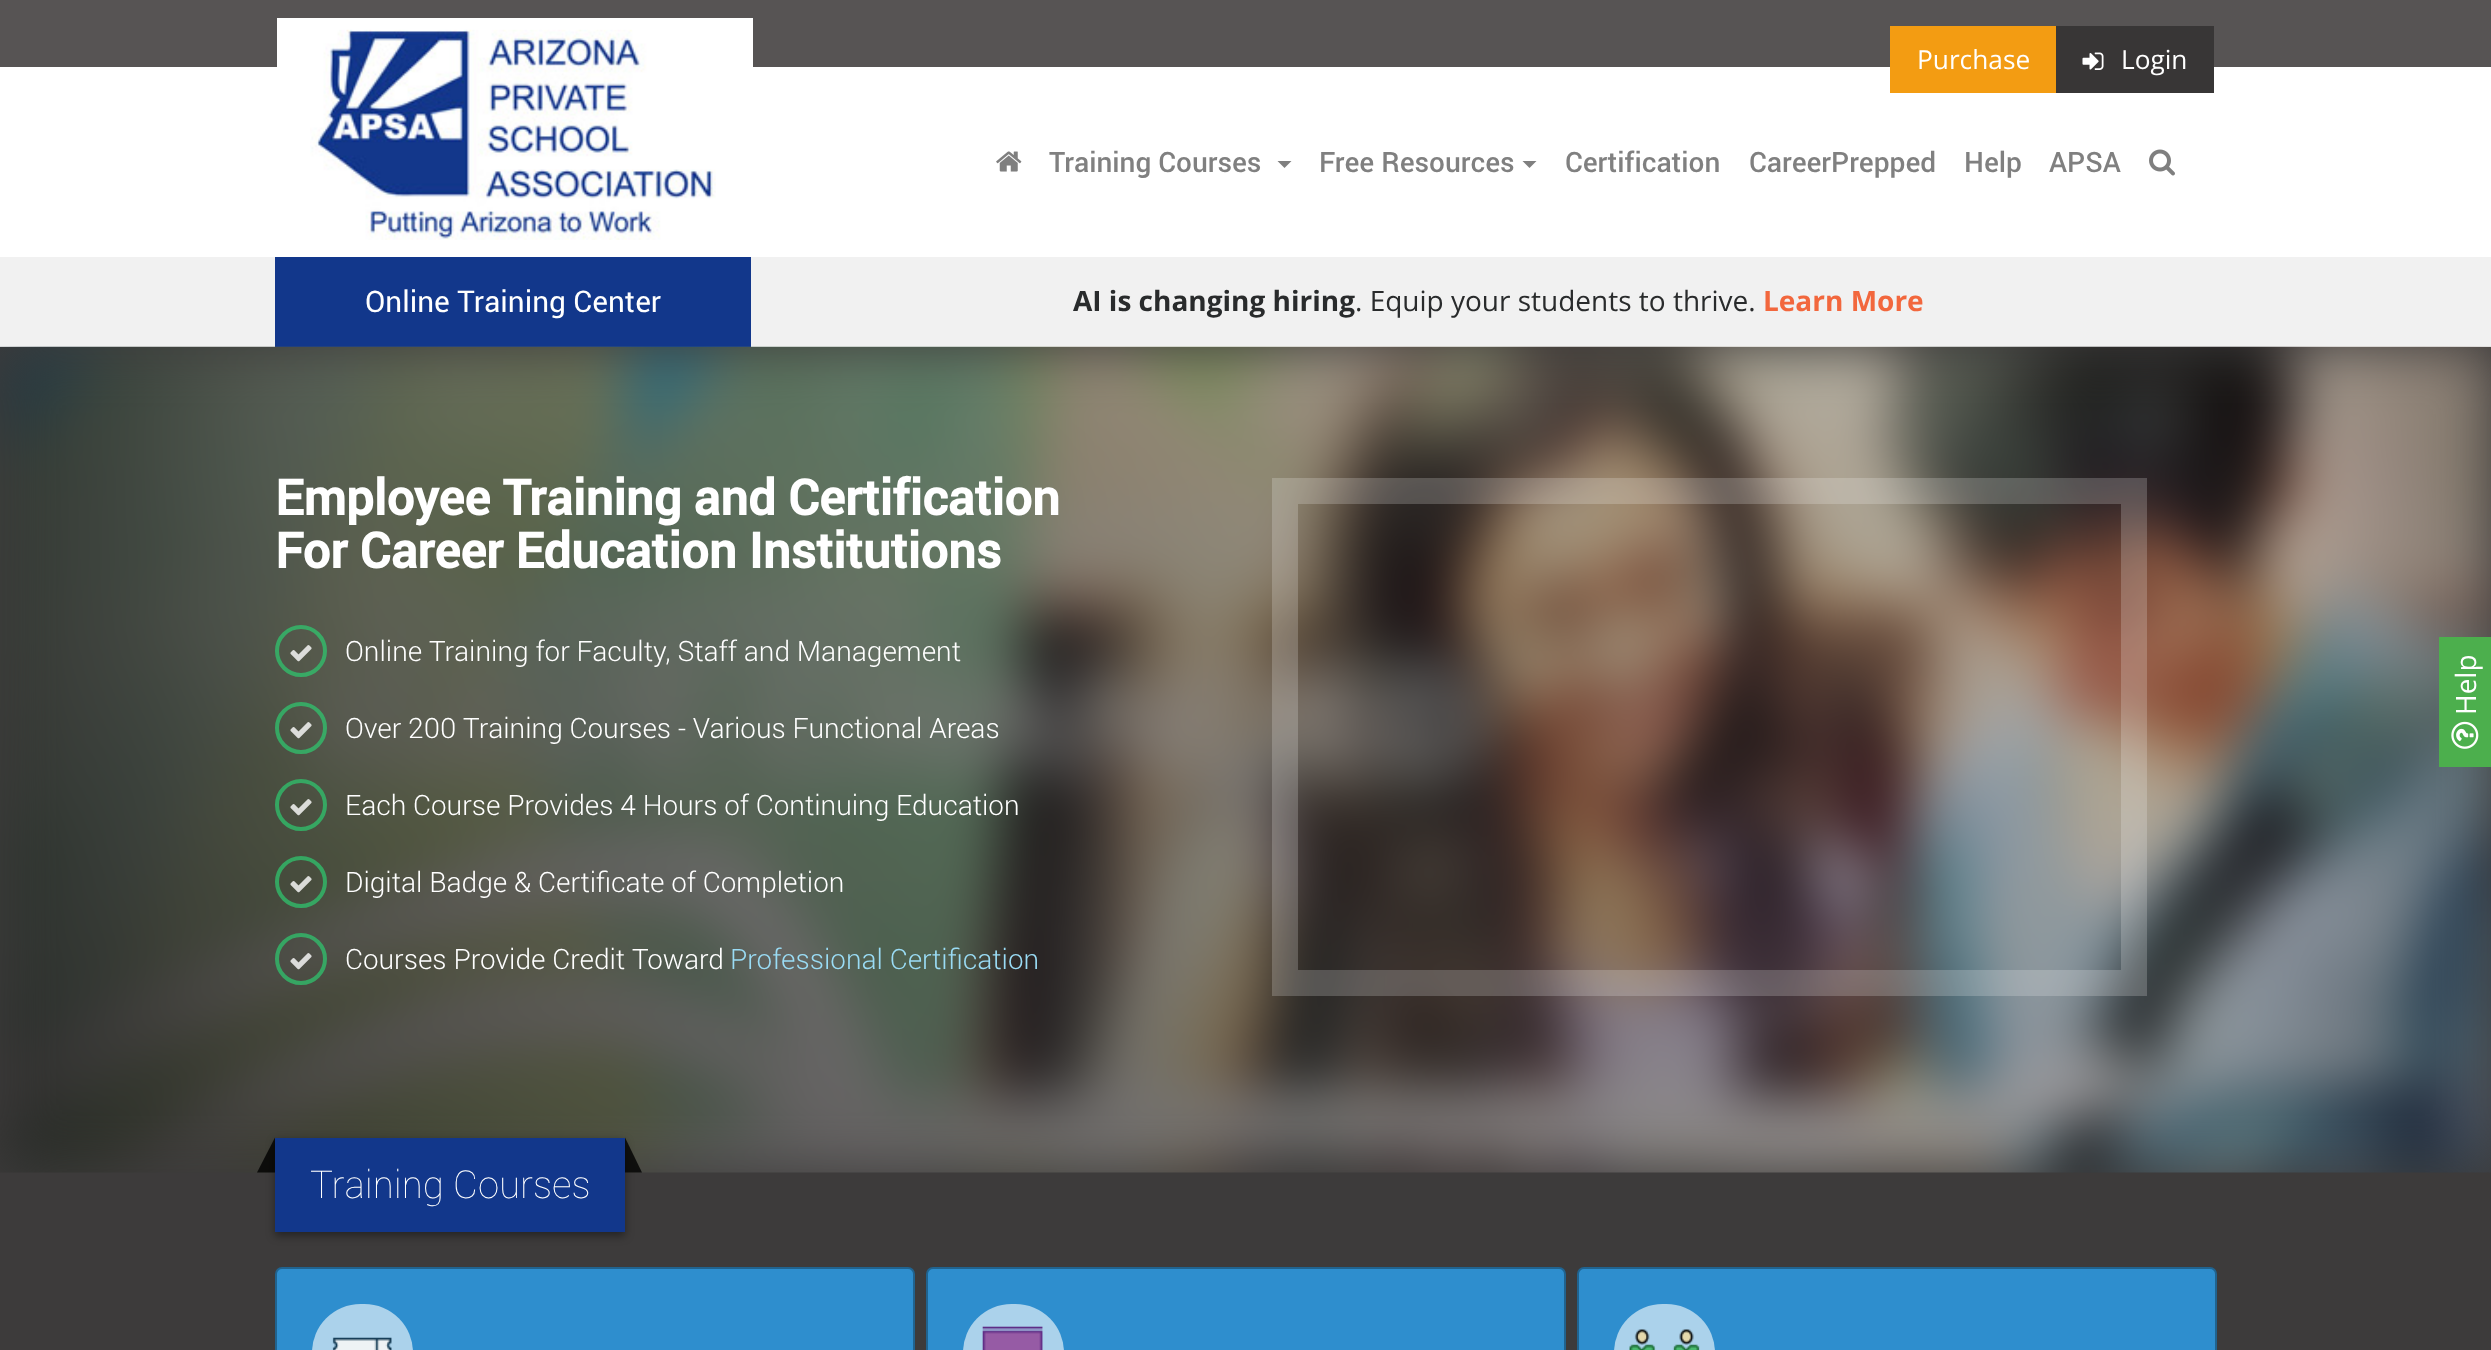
<!DOCTYPE html>
<meta charset="utf-8">
<style>body { margin: 0 } canvas { display: block }</style>
<canvas id="canvas" width="2491" height="1350"></canvas>
<script type="module">
  const canvas = document.getElementById("canvas");
  const g = canvas.getContext("2d");
  g.miterLimit = 4;
  g.fontKerning = "normal";
  function drawText(s, x, y, [font, color]) {
    g.font = font;
    g.fillStyle = color;
    g.fillText(s, x, y);
  }
  function fillBox(x, y, w, h, color) {
    g.fillStyle = color;
    g.fillRect(x, y, w, h);
  }
  function fillRounded(x, y, w, h, r, color) {
    g.fillStyle = color;
    g.beginPath();
    g.roundRect(x, y, w, h, r);
    g.fill();
  }
  async function drawPicture(src, x, y, w, h) {
    const img = new Image();
    img.src = src;
    await img.decode();
    g.drawImage(img, x, y, w, h);
  }

  const s1 = ["26.25px Open Sans", "#FFFFFF"];
  const s2 = ["500 28px Roboto", "#808080"];
  const s3 = ["29.75px roboto", "#FFFFFF"];
  const s4 = ["bold 28px Open Sans", "#292B2C"];
  const s5 = ["28px Open Sans", "#292B2C"];
  const s6 = ["bold 28px Open Sans", "#F2673D"];
  const s7 = ["bold 49px Roboto", "#FFFFFF"];
  const s8 = ["300 28px Roboto", "#FFFFFF"];
  const s9 = ["300 28px Roboto", "#9ADCF5"];
  const s10 = ["200 38.5px Roboto", "#FFFFFF"];

  fillBox(0, 0, 2491, 1350, "#3D3B3B");
  fillBox(0, 0, 2491, 67, "#575454");
  fillBox(277, 18, 476, 49, "#FFFFFF");
  fillBox(0, 67, 2491, 190, "#FFFFFF");
  await drawPicture("pic1.png", 310, 29, 406, 211);
  fillBox(1890, 26, 166, 67, "#F39C12");
  drawText("Purchase", 1917, 69, s1);
  fillBox(2056, 26, 158, 67, "#383636");
  await drawPicture("pic2.png", 2082, 52, 22, 18);
  drawText("Login", 2121, 69, s1);
  await drawPicture("pic3.png", 996, 151, 26, 21);
  drawText("Training Courses", 1049, 172, s2);
  g.beginPath();
  g.moveTo(1277.5, 161);
  g.lineTo(1291.5, 161);
  g.lineTo(1284.5, 168);
  g.closePath();
  g.fill();
  drawText("Free Resources", 1319, 172, s2);
  g.beginPath();
  g.moveTo(1522.5, 161);
  g.lineTo(1536.5, 161);
  g.lineTo(1529.5, 168);
  g.closePath();
  g.fill();
  drawText("Certification", 1565, 172, s2);
  drawText("CareerPrepped", 1749, 172, s2);
  drawText("Help", 1964, 172, s2);
  drawText("APSA", 2049, 172, s2);
  await drawPicture("pic4.png", 2149, 149, 26, 27);
  fillBox(0, 257, 2491, 90, "#F1F1F1");
  fillBox(275, 257, 476, 90, "#12378B");
  drawText("Online Training Center", 365, 312, s3);
  drawText("AI is changing hiring", 1073, 311, s4);
  drawText(". Equip your students to thrive.", 1355, 311, s5);
  drawText("Learn More", 1763, 311, s6);
  await drawPicture("pic5.png", 0, 346, 2491, 827);
  drawText("Employee Training and Certification", 275, 515, s7);
  drawText("For Career Education Institutions", 275, 568, s7);
  g.beginPath();
  g.arc(301, 651, 24, 0, Math.PI * 2);
  g.strokeStyle = "rgba(46, 204, 113, 0.7)";
  g.lineWidth = 4;
  g.stroke();
  await drawPicture("pic6.png", 290, 645, 22, 17);
  drawText("Online Training for Faculty, Staff and Management", 345, 661, s8);
  g.beginPath();
  g.arc(301, 728, 24, 0, Math.PI * 2);
  g.stroke();
  await drawPicture("pic7.png", 290, 722, 22, 17);
  drawText("Over 200 Training Courses - Various Functional Areas", 345, 738, s8);
  g.beginPath();
  g.arc(301, 805, 24, 0, Math.PI * 2);
  g.stroke();
  await drawPicture("pic8.png", 290, 799, 22, 17);
  drawText("Each Course Provides 4 Hours of Continuing Education", 345, 815, s8);
  g.beginPath();
  g.arc(301, 882, 24, 0, Math.PI * 2);
  g.stroke();
  await drawPicture("pic9.png", 290, 876, 22, 17);
  drawText("Digital Badge & Certificate of Completion", 345, 892, s8);
  g.beginPath();
  g.arc(301, 959, 24, 0, Math.PI * 2);
  g.stroke();
  await drawPicture("pic10.png", 290, 953, 22, 17);
  drawText("Courses Provide Credit Toward", 345, 969, s8);
  drawText("Professional Certification", 730, 969, s9);
  g.strokeStyle = "rgba(255, 255, 255, 0.2)";
  g.lineWidth = 26;
  g.strokeRect(1285, 491, 849, 492);
  fillBox(2439, 637, 52, 130, "#4CAF4D");
  g.font = "28px Open Sans";
  g.fillStyle = "#FFFFFF";
  g.save();
  g.translate(2476, 715);
  g.rotate(-90 * Math.PI / 180);
  g.fillText("Help", 0, 0);
  g.restore();
  await drawPicture("pic11.png", 2451, 721, 28, 28);
  g.fillStyle = "rgba(0, 0, 0, 0.4)";
  g.filter = "blur(4.5px)";
  g.beginPath();
  g.rect(275, 1141, 350, 95);
  g.fill();
  g.filter = "none";
  fillBox(275, 1138, 350, 94, "#12378B");
  g.fillStyle = "rgba(0, 0, 0, 0.8)";
  g.beginPath();
  g.moveTo(275, 1172.5);
  g.lineTo(257, 1172.5);
  g.lineTo(275, 1137.5);
  g.closePath();
  g.fill();
  g.beginPath();
  g.moveTo(642, 1172.5);
  g.lineTo(625, 1172.5);
  g.lineTo(625, 1137.5);
  g.closePath();
  g.fill();
  drawText("Training Courses", 310, 1198, s10);
  g.fillStyle = "#2E8ECE";
  g.beginPath();
  g.roundRect(276, 1268, 638, 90, 6);
  g.fill();
  g.strokeStyle = "#20638F";
  g.lineWidth = 2;
  g.stroke();
  fillRounded(312, 1304, 101, 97, 50.5, "#ABD2EB");
  await drawPicture("pic12.png", 332, 1337, 60, 13);
  g.fillStyle = "#2E8ECE";
  g.beginPath();
  g.roundRect(927, 1268, 638, 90, 6);
  g.fill();
  g.stroke();
  fillRounded(963, 1304, 101, 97, 50.5, "#ABD2EB");
  await drawPicture("pic13.png", 982, 1326, 61, 24);
  g.fillStyle = "#2E8ECE";
  g.beginPath();
  g.roundRect(1578, 1268, 638, 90, 6);
  g.fill();
  g.stroke();
  fillRounded(1614, 1304, 101, 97, 50.5, "#ABD2EB");
  await drawPicture("pic14.png", 1629, 1329, 71, 21);
</script>
